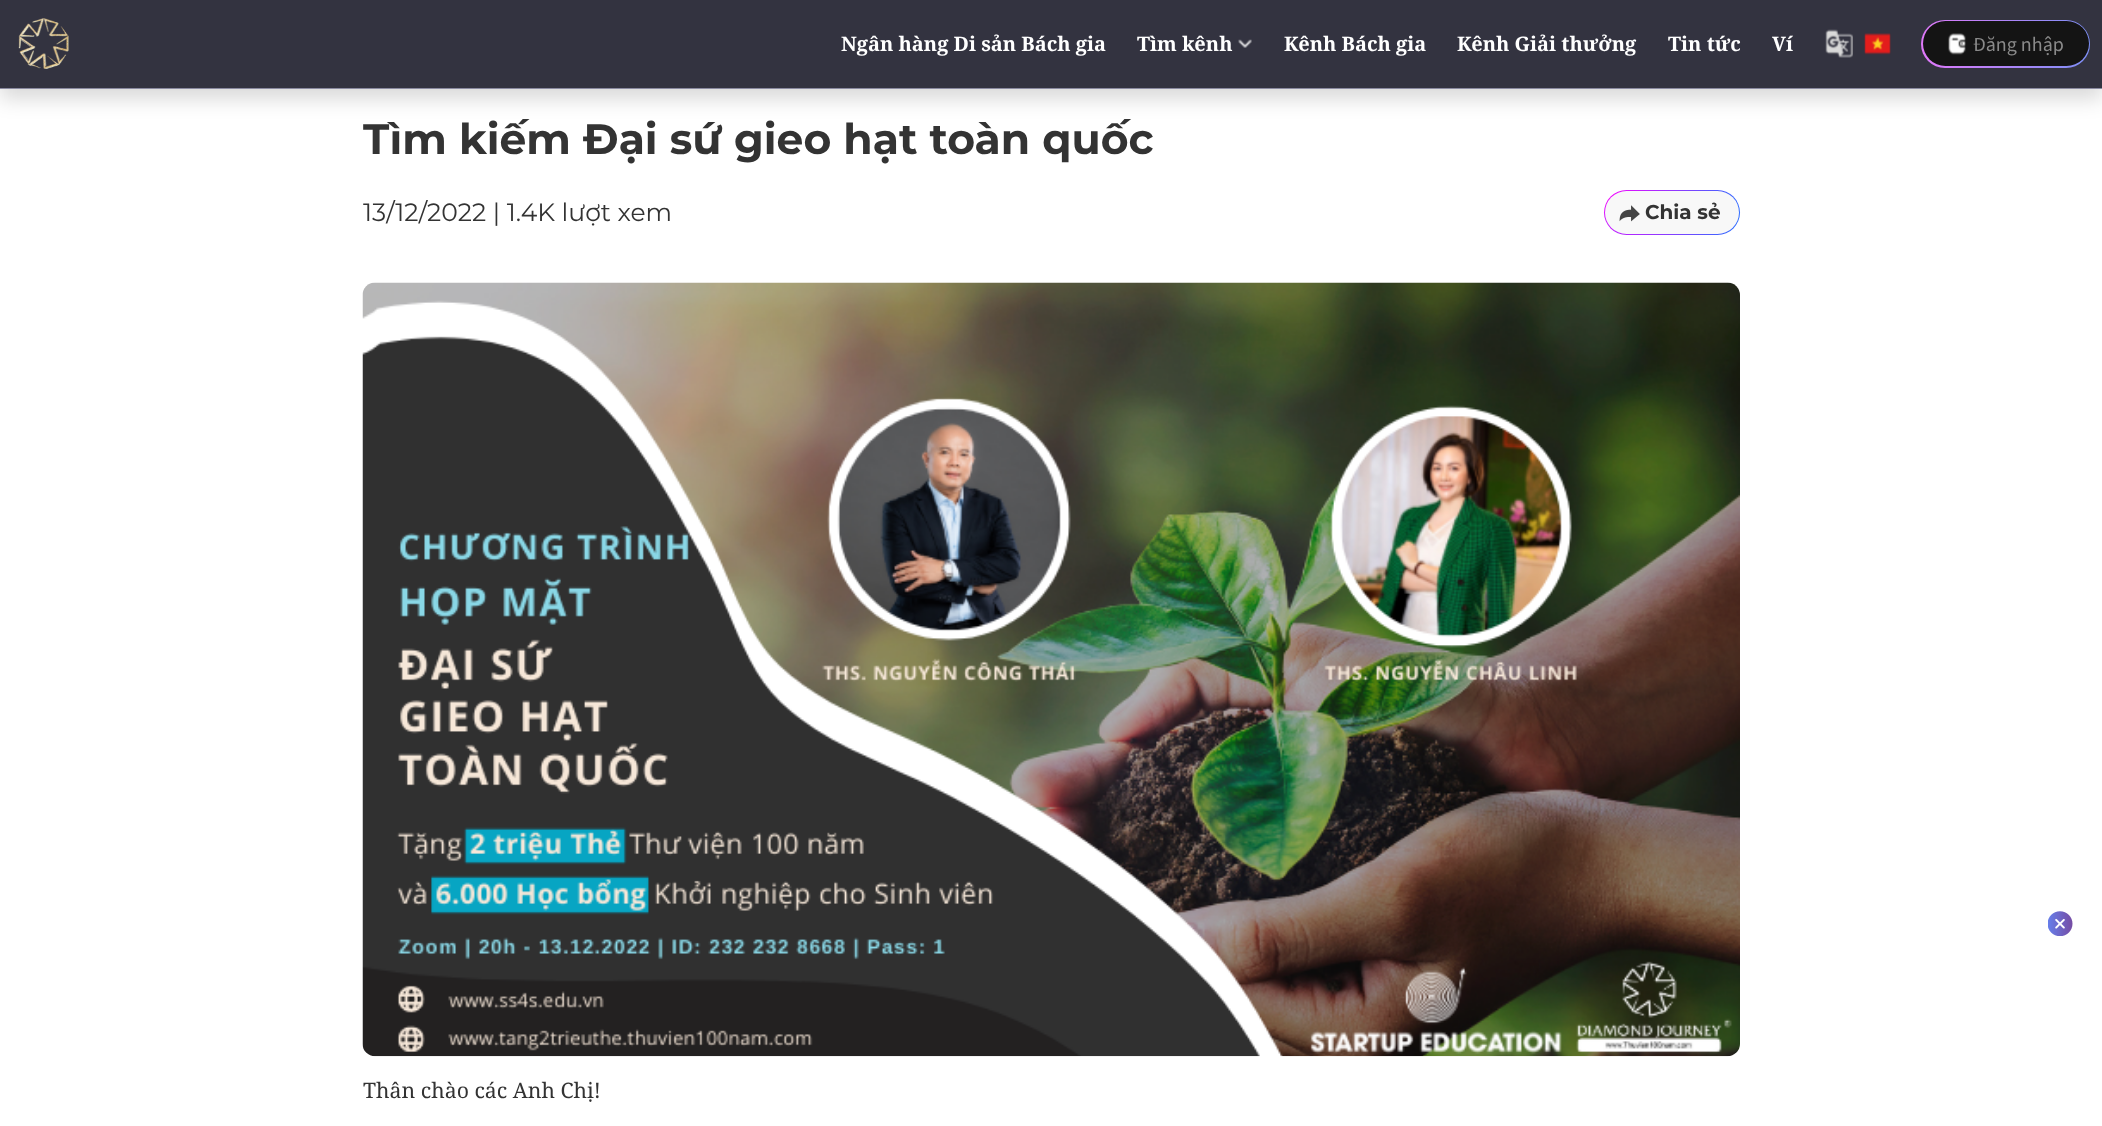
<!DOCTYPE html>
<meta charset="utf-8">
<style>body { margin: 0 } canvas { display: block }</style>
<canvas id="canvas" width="2102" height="1126"></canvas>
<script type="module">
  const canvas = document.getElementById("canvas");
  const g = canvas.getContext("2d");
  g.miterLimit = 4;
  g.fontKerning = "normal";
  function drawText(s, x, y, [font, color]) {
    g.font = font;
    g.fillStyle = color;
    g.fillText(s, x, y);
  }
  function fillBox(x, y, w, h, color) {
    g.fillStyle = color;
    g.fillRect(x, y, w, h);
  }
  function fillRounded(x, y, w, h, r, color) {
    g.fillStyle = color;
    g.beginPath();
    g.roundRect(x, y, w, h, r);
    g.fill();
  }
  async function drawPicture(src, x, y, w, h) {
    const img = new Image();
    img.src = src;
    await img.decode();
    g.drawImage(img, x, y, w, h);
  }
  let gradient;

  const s1 = ["bold 20px Noto Serif", "#FFFFFF"];
  const s2 = ["20px Source Sans Pro", "#8A8A8A"];
  const s3 = ["bold 42.5px Montserrat", "#333333"];
  const s4 = ["25px Montserrat", "#333333"];
  const s5 = ["bold 20px Montserrat", "#333333"];
  const s6 = ["21.25px Noto Serif", "#333333"];

  fillBox(0, 0, 2102, 1126, "#FFFFFF");
  g.fillStyle = "rgba(0, 0, 0, 0.15)";
  g.filter = "blur(10px)";
  g.beginPath();
  g.rect(0, 10, 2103, 89);
  g.fill();
  g.filter = "none";
  fillBox(0, 0, 2102, 88, "#333340");
  fillBox(0, 88, 2102, 1, "#8A8AA0");
  await drawPicture("pic1.png", 18, 18, 51, 51);
  drawText("Ngân hàng Di sản Bách gia", 841, 51, s1);
  drawText("Tìm kênh", 1137, 51, s1);
  await drawPicture("pic2.png", 1238, 39, 14, 9);
  drawText("Kênh Bách gia", 1284, 51, s1);
  drawText("Kênh Giải thưởng", 1457, 51, s1);
  drawText("Tin tức", 1668, 51, s1);
  drawText("Ví", 1772, 51, s1);
  await drawPicture("pic3.png", 1825, 29, 28, 29);
  await drawPicture("pic4.png", 1864, 33, 27, 22);
  gradient = g.createLinearGradient(1921, 44, 2090, 44);
  gradient.addColorStop(0, "#E079FA");
  gradient.addColorStop(1, "#7E90F7");
  g.fillStyle = gradient;
  g.beginPath();
  g.roundRect(1921, 20, 169, 48, 24);
  g.fill();
  fillRounded(1923, 21, 166, 45, 22.5, "#141414");
  await drawPicture("pic5.png", 1948, 33, 18, 22);
  drawText("Đăng nhập", 1973, 51, s2);
  drawText("Tìm kiếm Đại sứ gieo hạt toàn quốc", 363, 154, s3);
  drawText("13/12/2022 | 1.4K lượt xem", 363, 221, s4);
  gradient = g.createRadialGradient(1604, 190, 0, 1604, 190, 143);
  gradient.addColorStop(0, "#FB00FF");
  gradient.addColorStop(1, "#2870FF");
  g.fillStyle = gradient;
  g.beginPath();
  g.roundRect(1604, 190, 136, 45, 22.5);
  g.fill();
  fillRounded(1605, 191, 134, 43, 21.5, "#F8F8F8");
  await drawPicture("pic6.png", 1619, 205, 21, 17);
  drawText("Chia sẻ", 1645, 219, s5);
  await drawPicture("pic7.png", 362, 282, 1378, 775);
  drawText("Thân chào các Anh Chị!", 363, 1098, s6);
  await drawPicture("pic8.png", 2048, 911, 25, 25);
</script>
